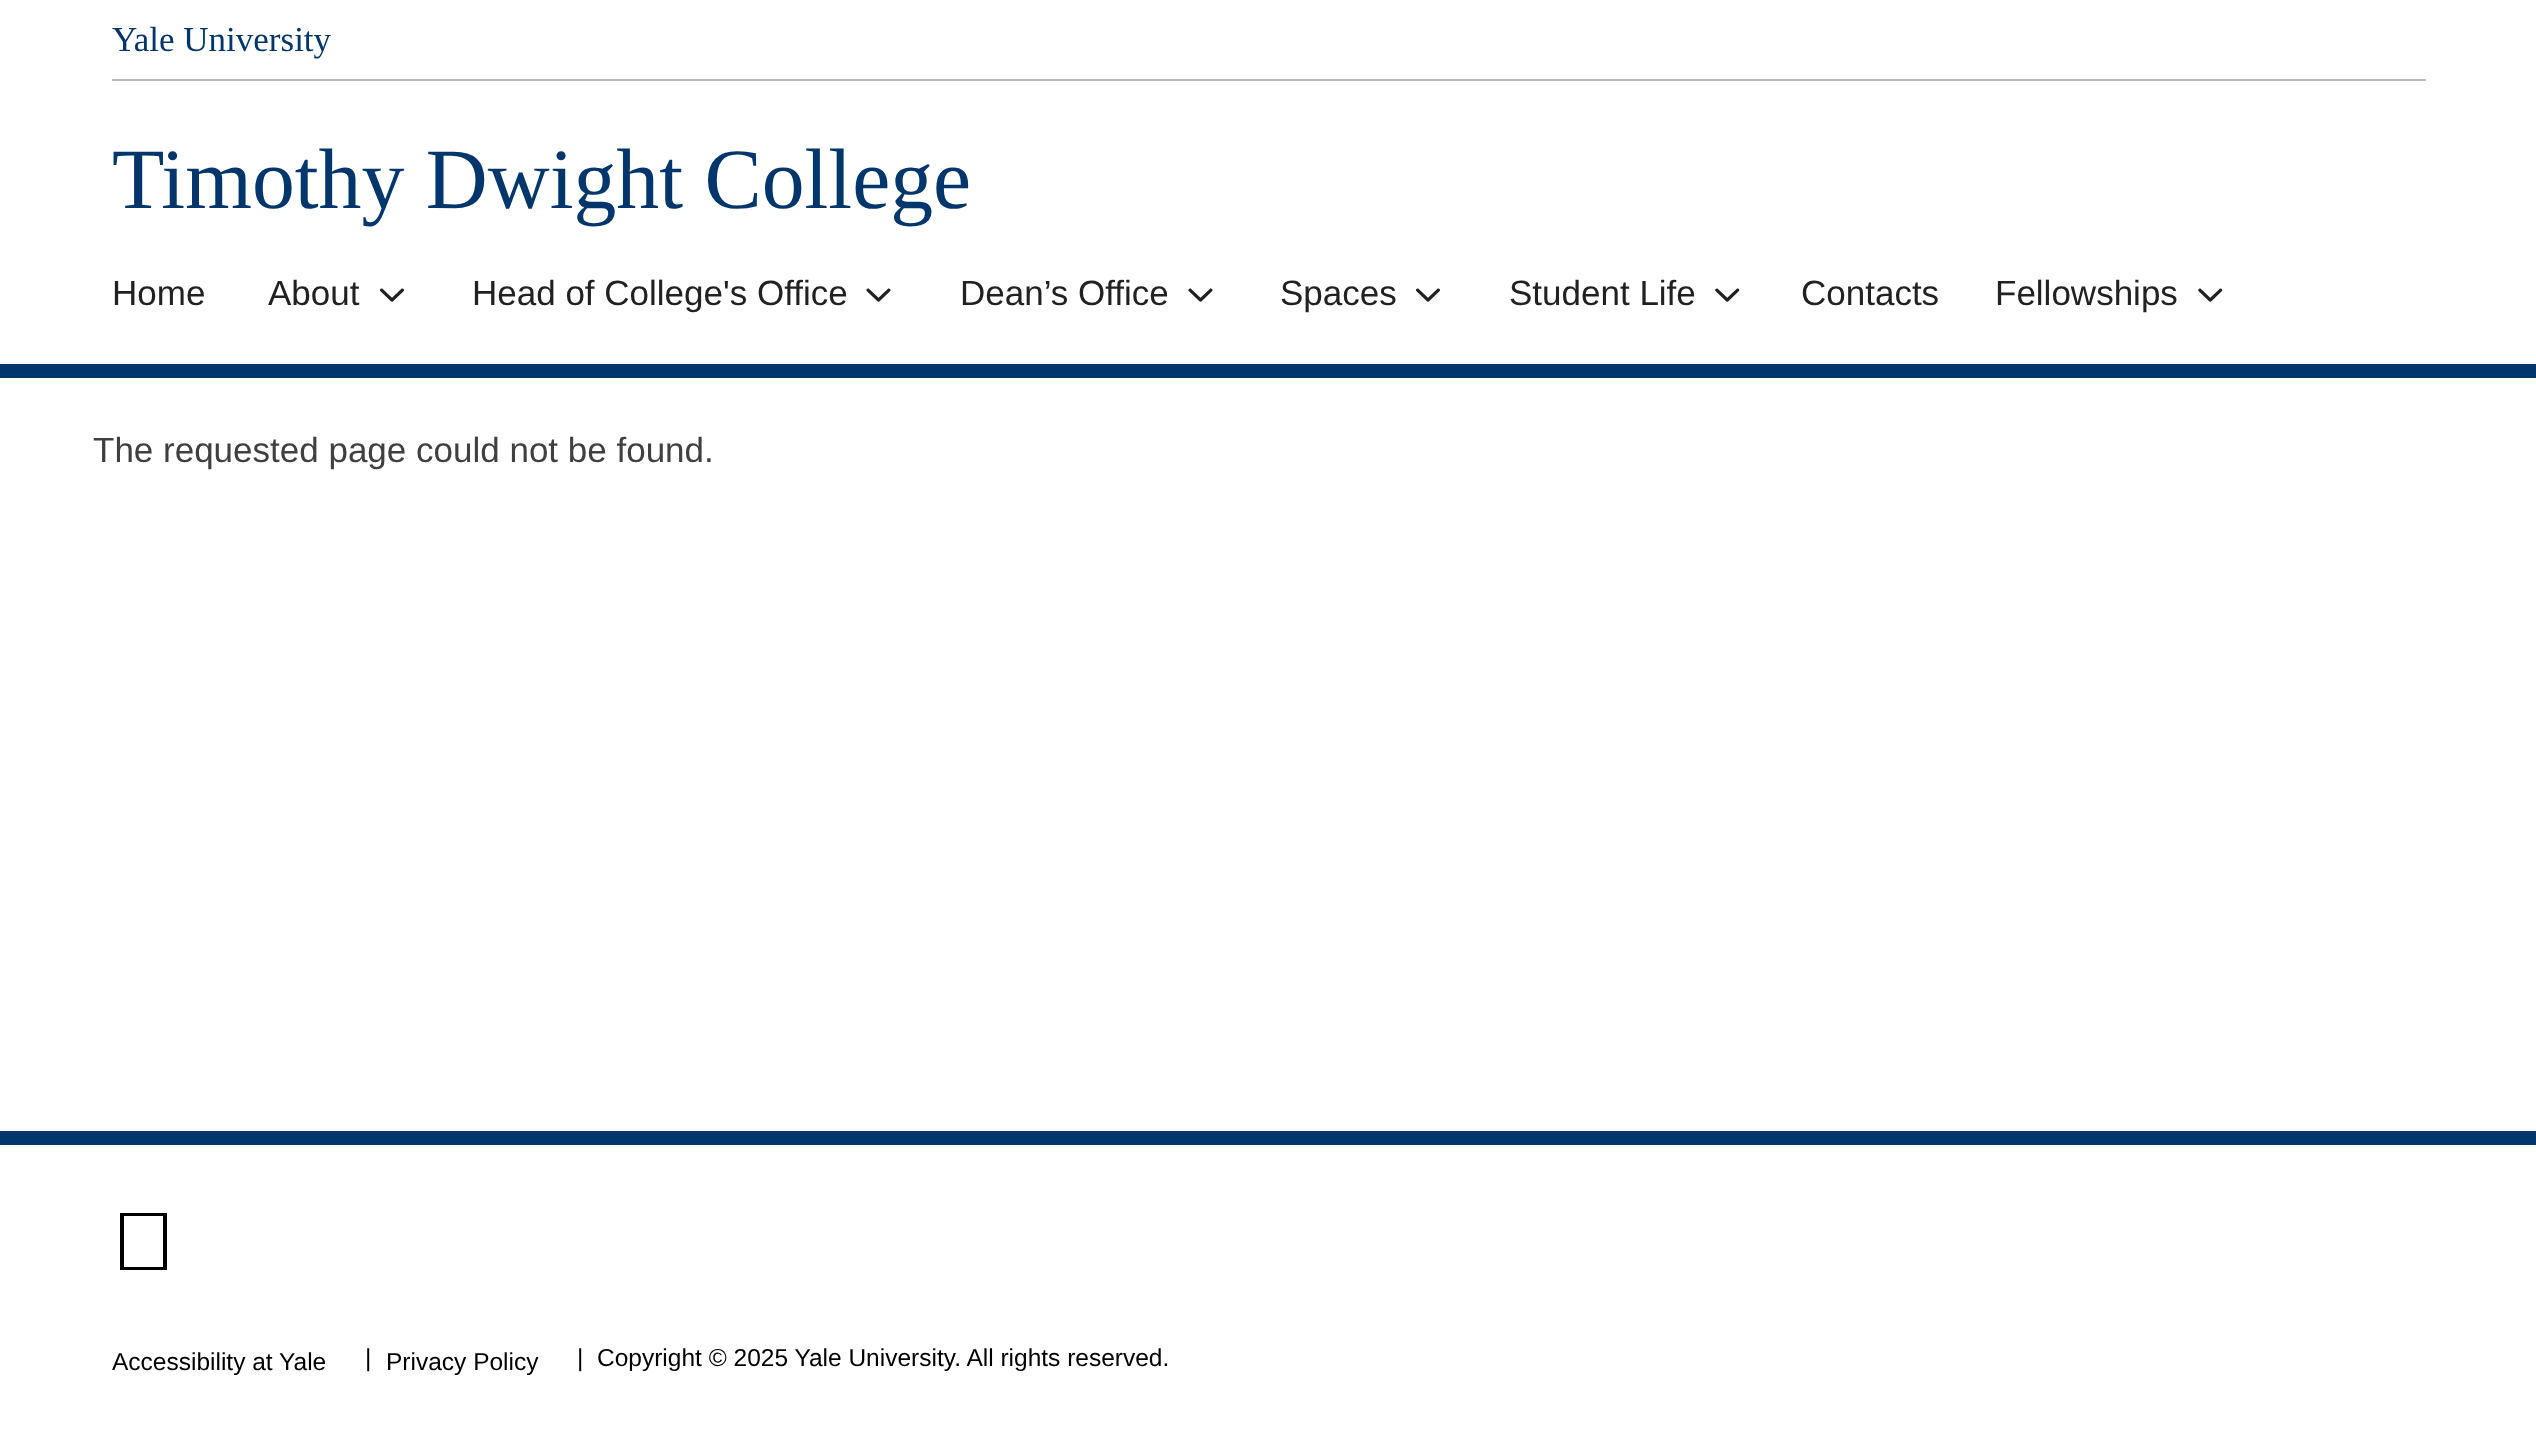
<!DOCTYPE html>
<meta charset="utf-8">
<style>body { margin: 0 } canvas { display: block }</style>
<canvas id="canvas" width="2536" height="1430"></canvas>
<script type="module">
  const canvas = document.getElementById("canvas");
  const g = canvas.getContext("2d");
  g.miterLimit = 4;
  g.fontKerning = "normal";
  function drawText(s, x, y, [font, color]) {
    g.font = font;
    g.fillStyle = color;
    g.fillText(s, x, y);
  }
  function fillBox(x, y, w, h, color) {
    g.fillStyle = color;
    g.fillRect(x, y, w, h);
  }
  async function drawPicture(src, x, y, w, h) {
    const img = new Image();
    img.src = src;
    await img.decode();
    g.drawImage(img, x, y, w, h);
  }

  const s1 = ["35px Liberation Serif", "#00366B"];
  const s2 = ["85.75px Liberation Serif", "#00366B"];
  const s3 = ["35px Liberation Sans", "#212121"];
  const s4 = ["35px Liberation Sans", "#404040"];
  const s5 = ["24.5px Liberation Sans", "#000000"];

  fillBox(0, 0, 2536, 1430, "#FFFFFF");
  fillBox(0, 364, 2536, 14, "#00366B");
  fillBox(112, 79, 2314, 2, "#BABABA");
  drawText("Yale University", 112, 51, s1);
  drawText("Timothy Dwight College", 112, 208, s2);
  drawText("Home", 112, 305, s3);
  drawText("About", 268, 305, s3);
  await drawPicture("pic1.png", 380, 288, 24, 14);
  drawText("Head of College's Office", 472, 305, s3);
  await drawPicture("pic2.png", 866, 288, 25, 14);
  drawText("Dean’s Office", 960, 305, s3);
  await drawPicture("pic2.png", 1188, 288, 25, 14);
  drawText("Spaces", 1280, 305, s3);
  await drawPicture("pic1.png", 1416, 288, 24, 14);
  drawText("Student Life", 1509, 305, s3);
  await drawPicture("pic3.png", 1715, 288, 25, 14);
  drawText("Contacts", 1801, 305, s3);
  drawText("Fellowships", 1995, 305, s3);
  await drawPicture("pic3.png", 2198, 288, 25, 14);
  drawText("The requested page could not be found.", 93, 462, s4);
  fillBox(0, 1131, 2536, 14, "#00366B");
  g.fillStyle = "#000000";
  g.beginPath();
  g.moveTo(120, 1213);
  g.lineTo(167, 1213);
  g.lineTo(167, 1270);
  g.lineTo(120, 1270);
  g.closePath();
  g.moveTo(124, 1216);
  g.lineTo(124, 1267);
  g.lineTo(163, 1267);
  g.lineTo(163, 1216);
  g.closePath();
  g.fill();
  drawText("Accessibility at Yale", 112, 1370, s5);
  drawText("|", 365, 1366, s5);
  drawText("Privacy Policy", 386, 1370, s5);
  drawText("|", 577, 1366, s5);
  drawText("Copyright © 2025 Yale University. All rights reserved.", 597, 1366, s5);
</script>
